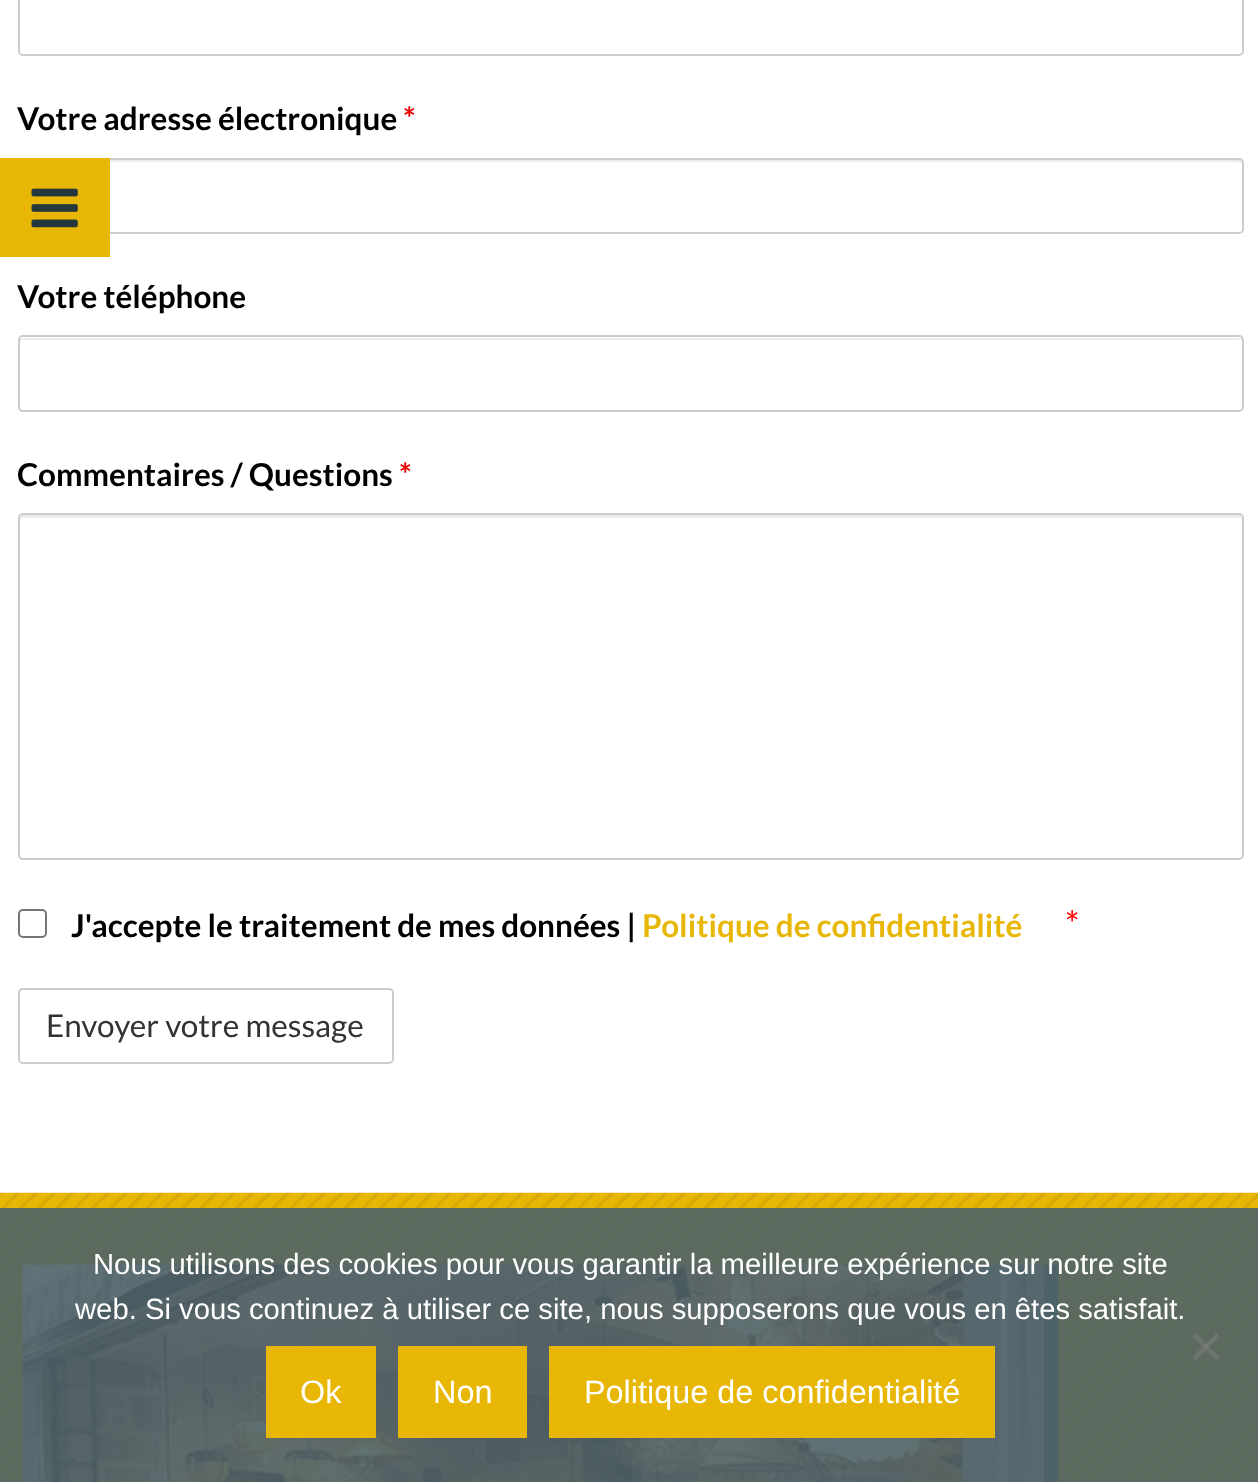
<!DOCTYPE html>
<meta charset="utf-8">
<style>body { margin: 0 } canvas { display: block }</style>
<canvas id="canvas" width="1258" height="1482"></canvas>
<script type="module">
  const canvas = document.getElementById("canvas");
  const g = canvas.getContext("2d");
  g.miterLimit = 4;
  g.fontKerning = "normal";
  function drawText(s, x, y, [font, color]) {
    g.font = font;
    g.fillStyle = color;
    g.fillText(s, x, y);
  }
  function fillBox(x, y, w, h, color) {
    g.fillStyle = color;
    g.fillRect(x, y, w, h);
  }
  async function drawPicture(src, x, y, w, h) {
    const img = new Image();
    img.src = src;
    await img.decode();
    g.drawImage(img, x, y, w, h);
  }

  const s1 = ["bold 31.5px Lato", "#000000"];
  const s2 = ["bold 31.5px Lato", "#EE0000"];
  const s3 = ["bold 31.5px Lato", "#E8B705"];
  const s4 = ["36px Lato", "#FF0000"];
  const s5 = ["31.5px Lato", "#333333"];
  const s6 = ["29.25px Liberation Sans", "#FFFFFF"];
  const s7 = ["32.4px Liberation Sans", "#FFFFFF"];

  fillBox(0, 0, 1258, 1482, "#FFFFFF");
  g.beginPath();
  g.roundRect(19, -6, 1224, 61, 4);
  g.strokeStyle = "#CCCCCC";
  g.lineWidth = 2;
  g.stroke();
  drawText("Votre adresse électronique", 17, 130, s1);
  drawText("*", 403, 130, s2);
  g.fillStyle = "#ECECEC";
  g.beginPath();
  g.moveTo(22, 162);
  g.lineTo(1240, 162);
  g.bezierCurveTo(1241, 162, 1242, 163, 1242, 164);
  g.bezierCurveTo(1242, 162, 1242, 160, 1240, 160);
  g.lineTo(22, 160);
  g.bezierCurveTo(20, 160, 20, 162, 20, 164);
  g.bezierCurveTo(20, 163, 21, 162, 22, 162);
  g.closePath();
  g.fill();
  g.beginPath();
  g.roundRect(19, 159, 1224, 74, 4);
  g.stroke();
  drawText("Votre téléphone", 17, 308, s1);
  g.fillStyle = "#ECECEC";
  g.beginPath();
  g.moveTo(22, 340);
  g.lineTo(1240, 340);
  g.bezierCurveTo(1241, 340, 1242, 341, 1242, 342);
  g.bezierCurveTo(1242, 340, 1242, 338, 1240, 338);
  g.lineTo(22, 338);
  g.bezierCurveTo(20, 338, 20, 340, 20, 342);
  g.bezierCurveTo(20, 341, 21, 340, 22, 340);
  g.closePath();
  g.fill();
  g.beginPath();
  g.roundRect(19, 336, 1224, 75, 4);
  g.stroke();
  drawText("Commentaires / Questions", 17, 486, s1);
  drawText("*", 399, 486, s2);
  g.fillStyle = "#ECECEC";
  g.beginPath();
  g.moveTo(22, 518);
  g.lineTo(1240, 518);
  g.bezierCurveTo(1241, 518, 1242, 519, 1242, 520);
  g.bezierCurveTo(1242, 519, 1242, 517, 1241, 516);
  g.lineTo(1240, 515);
  g.lineTo(22, 515);
  g.lineTo(20, 516);
  g.lineTo(20, 520);
  g.bezierCurveTo(20, 519, 21, 518, 22, 518);
  g.closePath();
  g.fill();
  g.beginPath();
  g.roundRect(19, 514, 1224, 345, 4);
  g.stroke();
  g.beginPath();
  g.roundRect(19, 910, 27, 27, 4);
  g.strokeStyle = "#767676";
  g.stroke();
  drawText("J'accepte le traitement de mes données |", 71, 937, s1);
  drawText("Politique de confidentialité", 642, 937, s3);
  drawText("*", 1065, 937, s4);
  g.beginPath();
  g.roundRect(19, 989, 374, 74, 4);
  g.strokeStyle = "#CCCCCC";
  g.stroke();
  drawText("Envoyer votre message", 46, 1037, s5);
  fillBox(0, 158, 110, 99, "#E8B705");
  await drawPicture("pic1.png", 31, 188, 47, 40);
  await drawPicture("pic2.png", 0, 1192, 1258, 290);
  fillBox(1044, 1265, 14, 217, "#4E6269");
  await drawPicture("pic3.png", 22, 1264, 1022, 218);
  drawText("Nous utilisons des cookies pour vous garantir la meilleure expérience sur notre site", 93, 1274, s6);
  drawText("web. Si vous continuez à utiliser ce site, nous supposerons que vous en êtes satisfait.", 75, 1319, s6);
  g.fillStyle = "#6F7570";
  g.beginPath();
  g.moveTo(1216.5, 1333);
  g.lineTo(1219.5, 1336.5);
  g.lineTo(1195.5, 1360.5);
  g.lineTo(1192.5, 1357);
  g.closePath();
  g.fill();
  g.fillStyle = "rgba(128, 128, 128, 0.5)";
  g.beginPath();
  g.moveTo(1192.5, 1336.5);
  g.lineTo(1195.5, 1333);
  g.lineTo(1219.5, 1357);
  g.lineTo(1216.5, 1360.5);
  g.closePath();
  g.fill();
  fillBox(266, 1346, 110, 92, "#E8B705");
  drawText("Ok", 300, 1403, s7);
  fillBox(398, 1346, 129, 92, "#E8B705");
  drawText("Non", 433, 1403, s7);
  fillBox(549, 1346, 446, 92, "#E8B705");
  drawText("Politique de confidentialité", 584, 1403, s7);
</script>
